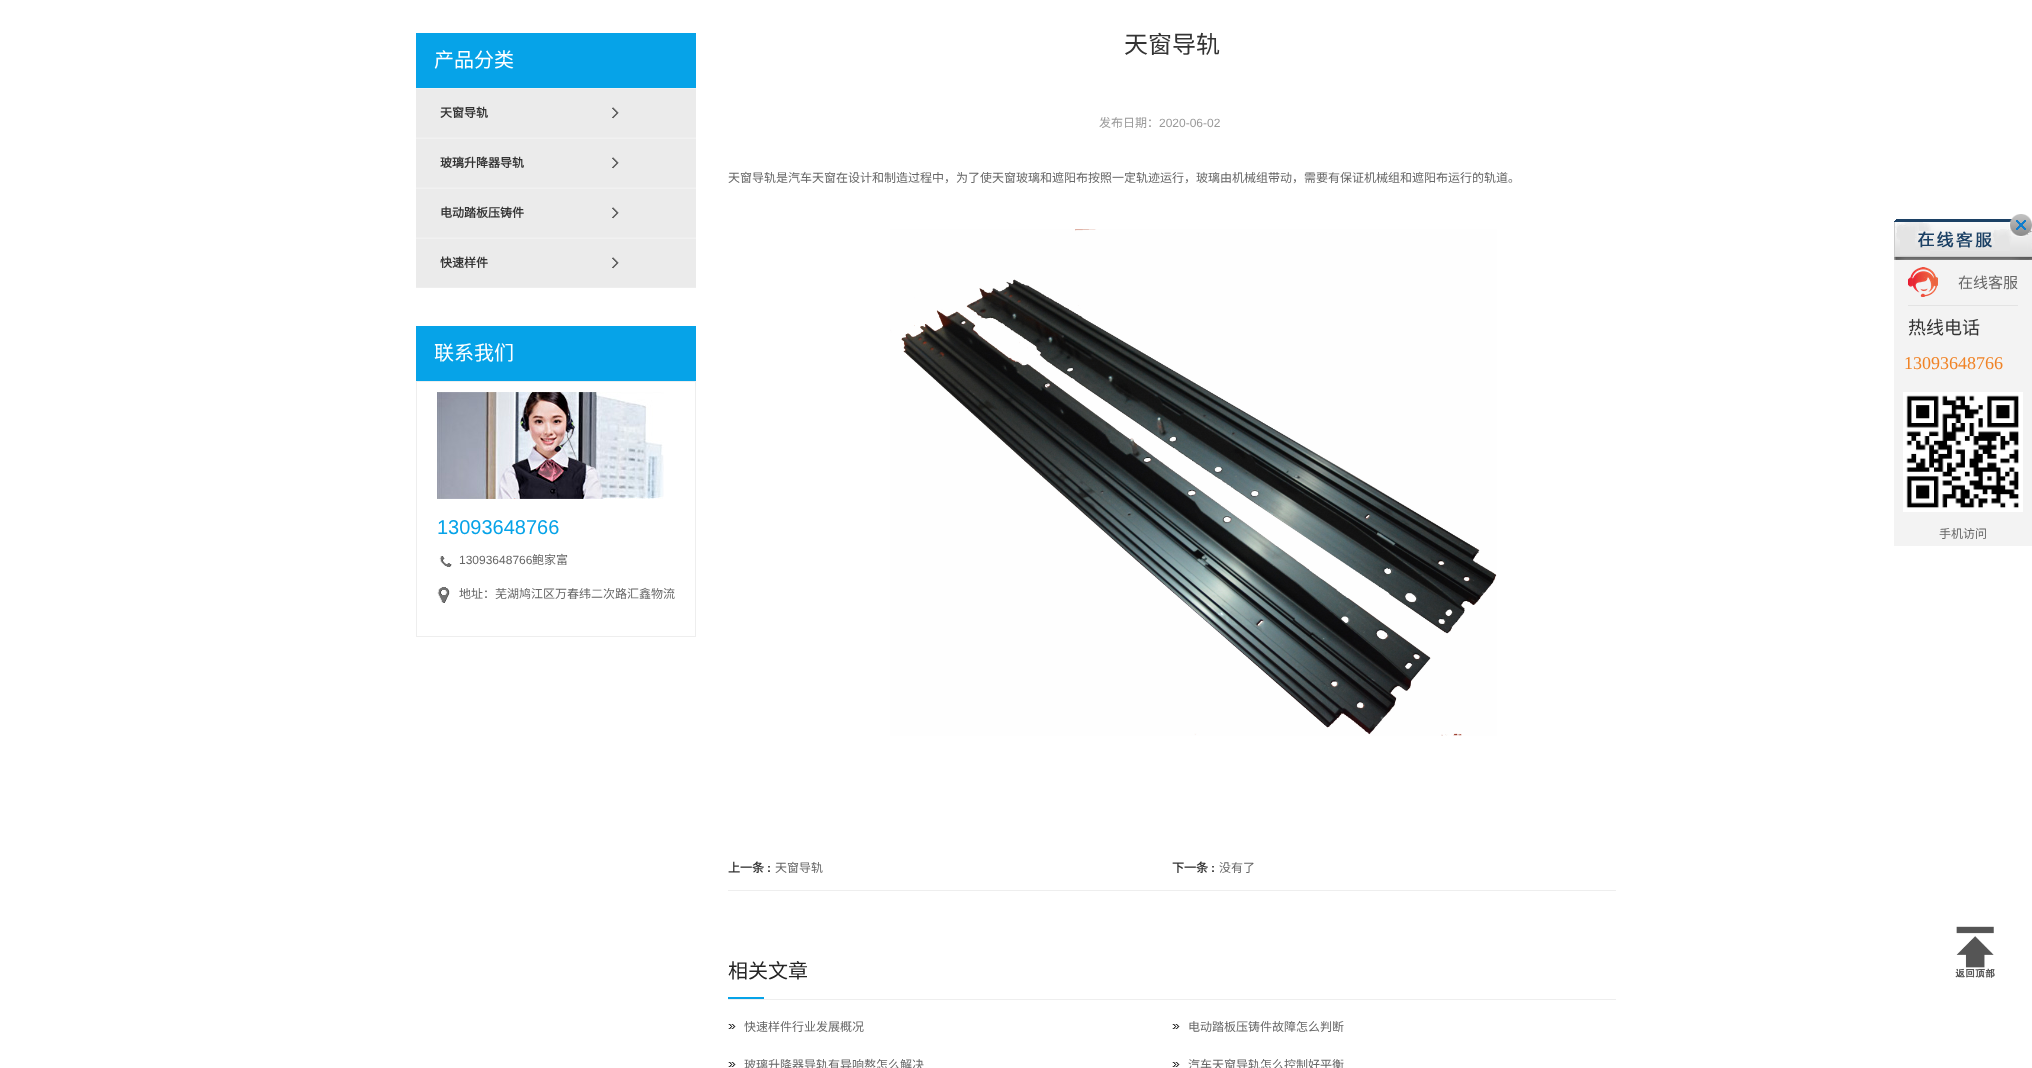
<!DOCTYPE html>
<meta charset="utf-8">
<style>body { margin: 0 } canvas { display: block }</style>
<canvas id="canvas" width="2032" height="1068"></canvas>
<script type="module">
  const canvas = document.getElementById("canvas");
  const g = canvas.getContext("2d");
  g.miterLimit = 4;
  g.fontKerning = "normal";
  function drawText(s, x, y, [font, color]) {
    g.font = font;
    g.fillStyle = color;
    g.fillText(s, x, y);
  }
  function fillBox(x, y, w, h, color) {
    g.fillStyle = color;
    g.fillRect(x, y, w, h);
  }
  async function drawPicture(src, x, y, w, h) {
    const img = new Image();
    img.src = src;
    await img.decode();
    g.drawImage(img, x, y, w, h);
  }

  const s1 = ["20px Noto Sans CJK SC", "#FFFFFF"];
  const s2 = ["bold 12px Noto Sans CJK SC", "#333333"];
  const s3 = ["20px Liberation Sans", "#06A3E8"];
  const s4 = ["12px Liberation Sans", "#666666"];
  const s5 = ["12px Noto Sans CJK SC", "#666666"];
  const s6 = ["24px Noto Sans CJK SC", "#333333"];
  const s7 = ["12px Noto Sans CJK SC", "#999999"];
  const s8 = ["12px Liberation Sans", "#999999"];
  const s9 = ["bold 12px Liberation Sans", "#333333"];
  const s10 = ["20px Noto Sans CJK SC", "#242424"];
  const s11 = ["15px Noto Sans CJK SC", "#666666"];
  const s12 = ["18px Noto Sans CJK SC", "#333333"];
  const s13 = ["18px Liberation Serif", "#F08326"];

  fillBox(0, 0, 2032, 1068, "#FFFFFF");
  fillBox(416, 33, 280, 55, "#06A3E8");
  drawText("产品分类", 434, 67, s1);
  fillBox(416, 89, 280, 48, "#EBEBEB");
  fillBox(416, 88, 280, 1, "#F1F1F1");
  fillBox(416, 137, 280, 1, "#EEEEEE");
  await drawPicture("pic1.png", 612, 107, 7, 12);
  drawText("天窗导轨", 440, 117, s2);
  fillBox(416, 139, 280, 48, "#EBEBEB");
  fillBox(416, 138, 280, 1, "#F1F1F1");
  fillBox(416, 187, 280, 1, "#EEEEEE");
  await drawPicture("pic1.png", 612, 157, 7, 12);
  drawText("玻璃升降器导轨", 440, 167, s2);
  fillBox(416, 189, 280, 48, "#EBEBEB");
  fillBox(416, 188, 280, 1, "#F1F1F1");
  fillBox(416, 237, 280, 1, "#EEEEEE");
  await drawPicture("pic1.png", 612, 207, 7, 12);
  drawText("电动踏板压铸件", 440, 217, s2);
  fillBox(416, 239, 280, 48, "#EBEBEB");
  fillBox(416, 238, 280, 1, "#F1F1F1");
  fillBox(416, 287, 280, 1, "#EEEEEE");
  await drawPicture("pic1.png", 612, 257, 7, 12);
  drawText("快速样件", 440, 267, s2);
  fillBox(416, 326, 280, 55, "#06A3E8");
  drawText("联系我们", 434, 360, s1);
  g.strokeStyle = "#EEEEEE";
  g.strokeRect(416.5, 381.5, 279, 255);
  await drawPicture("pic2.png", 437, 392, 227, 107);
  drawText("13093648766", 437, 534, s3);
  await drawPicture("pic3.png", 439, 556, 13, 11);
  drawText("13093648766", 459, 564, s4);
  drawText("鲍家富", 532, 564, s5);
  await drawPicture("pic4.png", 437, 587, 13, 16);
  drawText("地址：芜湖鸠江区万春纬二次路汇鑫物流", 459, 598, s5);
  drawText("天窗导轨", 1124, 53, s6);
  drawText("发布日期：", 1099, 127, s7);
  drawText("2020-06-02", 1159, 127, s8);
  drawText("天窗导轨是汽车天窗在设计和制造过程中，为了使天窗玻璃和遮阳布按照一定轨迹运行，玻璃由机械组带动，需要有保证机械组和遮阳布运行的轨道。", 728, 182, s5);
  await drawPicture("pic5.png", 890, 229, 607, 507);
  fillBox(728, 890, 888, 1, "#EEEEEE");
  drawText("上一条", 728, 872, s2);
  drawText(":", 767, 872, s9);
  drawText("天窗导轨", 775, 872, s5);
  drawText("下一条", 1172, 872, s2);
  drawText(":", 1211, 872, s9);
  drawText("没有了", 1219, 872, s5);
  drawText("相关文章", 728, 978, s10);
  fillBox(728, 997, 36, 2, "#06A3E8");
  fillBox(728, 999, 888, 1, "#EEEEEE");
  await drawPicture("pic6.png", 728, 1024, 8, 5);
  drawText("快速样件行业发展概况", 744, 1031, s5);
  await drawPicture("pic6.png", 1172, 1024, 8, 5);
  drawText("电动踏板压铸件故障怎么判断", 1188, 1031, s5);
  await drawPicture("pic6.png", 728, 1062, 8, 5);
  drawText("玻璃升降器导轨有异响熬怎么解决", 744, 1069, s5);
  await drawPicture("pic6.png", 1172, 1062, 8, 5);
  drawText("汽车天窗导轨怎么控制好平衡", 1188, 1069, s5);
  await drawPicture("pic7.png", 1894, 214, 138, 46);
  g.save();
  g.beginPath();
  g.rect(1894, 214, 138, 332);
  g.clip();
  g.fillStyle = "rgba(0, 0, 0, 0.25)";
  g.filter = "blur(1.5px)";
  g.beginPath();
  g.rect(1892, 260, 138, 286);
  g.fill();
  g.filter = "none";
  g.restore();
  fillBox(1894, 260, 138, 286, "#F3F3F3");
  fillBox(1908, 305, 110, 1, "#E3E3E3");
  await drawPicture("pic8.png", 1908, 267, 30, 30);
  drawText("在线客服", 1958, 288, s11);
  drawText("热线电话", 1908, 334, s12);
  drawText("13093648766", 1904, 369, s13);
  await drawPicture("pic9.png", 1903, 392, 120, 120);
  drawText("手机访问", 1939, 538, s5);
  await drawPicture("pic10.png", 1955, 926, 40, 52);
</script>
